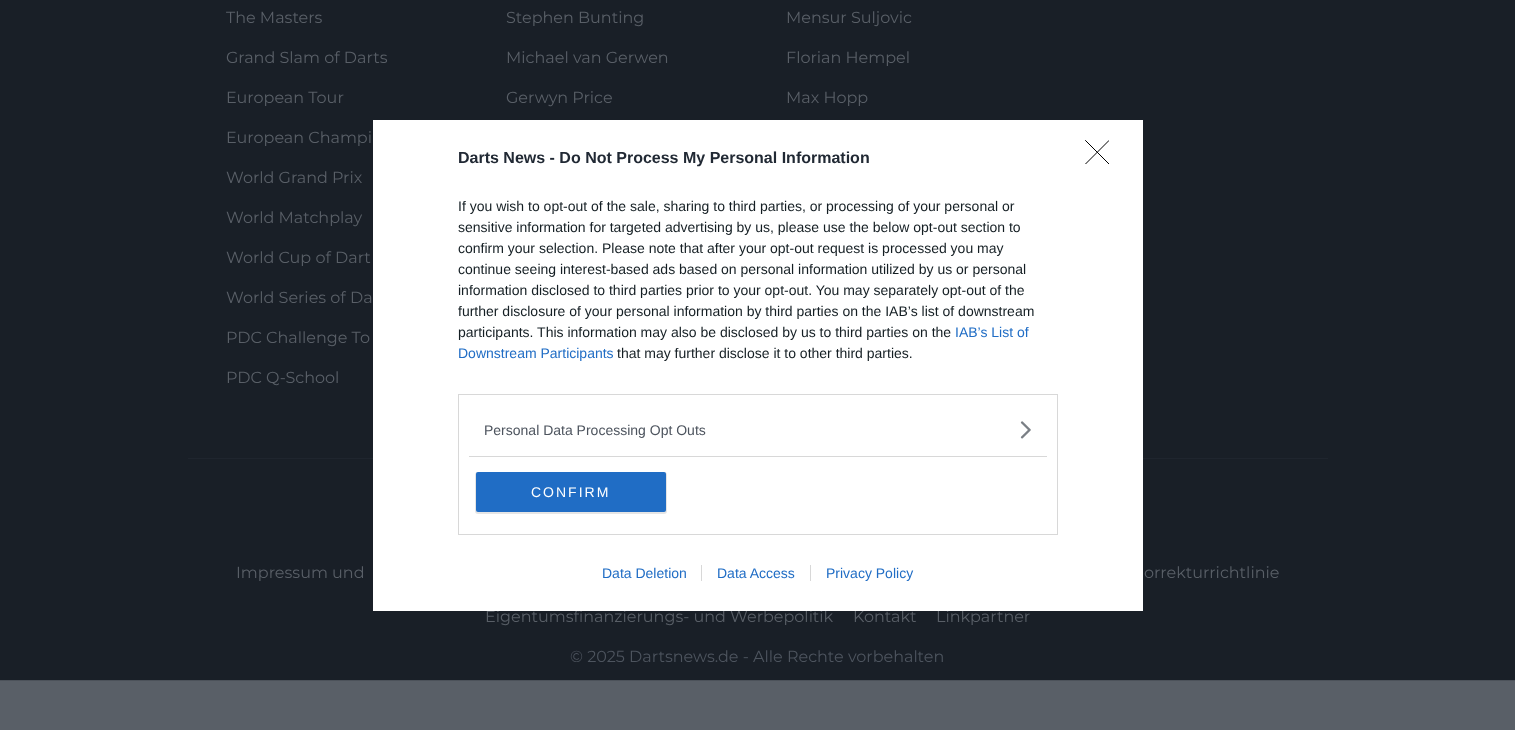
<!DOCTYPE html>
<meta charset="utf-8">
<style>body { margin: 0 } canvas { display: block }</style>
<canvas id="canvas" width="1515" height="730"></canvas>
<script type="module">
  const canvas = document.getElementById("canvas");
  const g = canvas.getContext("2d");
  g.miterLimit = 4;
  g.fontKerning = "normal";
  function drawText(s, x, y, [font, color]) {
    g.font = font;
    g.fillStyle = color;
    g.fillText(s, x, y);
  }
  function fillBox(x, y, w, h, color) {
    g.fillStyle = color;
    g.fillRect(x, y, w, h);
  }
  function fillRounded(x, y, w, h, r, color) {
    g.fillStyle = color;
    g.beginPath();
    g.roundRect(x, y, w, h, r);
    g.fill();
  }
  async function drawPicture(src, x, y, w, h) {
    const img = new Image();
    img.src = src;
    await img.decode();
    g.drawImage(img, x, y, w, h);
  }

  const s1 = ["16px Montserrat", "#595F67"];
  const s2 = ["16px Montserrat", "#4D545E"];
  const s3 = ["bold 16px Liberation Sans", "#212934"];
  const s4 = ["14px Liberation Sans", "#141E23"];
  const s5 = ["14px Liberation Sans", "#206DC5"];
  const s6 = ["14px Liberation Sans", "#4D545E"];
  const s7 = ["14px Liberation Sans", "#FFFFFF"];

  fillBox(0, 0, 1515, 730, "#191F27");
  fillBox(188, 458, 1140, 1, "#1F252E");
  drawText("The Masters", 226, 23, s1);
  drawText("Grand Slam of Darts", 226, 63, s1);
  drawText("European Tour", 226, 103, s1);
  drawText("European Champi", 226, 143, s1);
  drawText("World Grand Prix", 226, 183, s1);
  drawText("World Matchplay", 226, 223, s1);
  drawText("World Cup of Dart", 226, 263, s1);
  drawText("World Series of Da", 226, 303, s1);
  drawText("PDC Challenge To", 226, 343, s1);
  drawText("PDC Q-School", 226, 383, s1);
  drawText("Stephen Bunting", 506, 23, s1);
  drawText("Michael van Gerwen", 506, 63, s1);
  drawText("Gerwyn Price", 506, 103, s1);
  drawText("Mensur Suljovic", 786, 23, s1);
  drawText("Florian Hempel", 786, 63, s1);
  drawText("Max Hopp", 786, 103, s1);
  drawText("Impressum und", 236, 578, s1);
  drawText("orrekturrichtlinie", 1144, 578, s1);
  drawText("Eigentumsfinanzierungs- und Werbepolitik", 485, 622, s1);
  drawText("Kontakt", 853, 622, s1);
  drawText("Linkpartner", 936, 622, s1);
  drawText("© 2025 Dartsnews.de - Alle Rechte vorbehalten", 570, 662, s2);
  fillBox(0, 681, 1515, 49, "#595F67");
  fillBox(0, 680, 1515, 1, "#4C525A");
  fillBox(373, 120, 770, 491, "#FFFFFF");
  drawText("Darts News - Do Not Process My Personal Information", 458, 163, s3);
  drawText("If you wish to opt-out of the sale, sharing to third parties, or processing of your personal or", 458, 211, s4);
  drawText("sensitive information for targeted advertising by us, please use the below opt-out section to", 458, 232, s4);
  drawText("confirm your selection. Please note that after your opt-out request is processed you may", 458, 253, s4);
  drawText("continue seeing interest-based ads based on personal information utilized by us or personal", 458, 274, s4);
  drawText("information disclosed to third parties prior to your opt-out. You may separately opt-out of the", 458, 295, s4);
  drawText("further disclosure of your personal information by third parties on the IAB’s list of downstream", 458, 316, s4);
  drawText("participants. This information may also be disclosed by us to third parties on the", 458, 337, s4);
  drawText("IAB’s List of", 955, 337, s5);
  drawText("Downstream Participants", 458, 358, s5);
  drawText("that may further disclose it to other third parties.", 617, 358, s4);
  g.strokeStyle = "#D8D8D8";
  g.strokeRect(458.5, 394.5, 599, 140);
  fillBox(469, 456, 578, 1, "#D8D8D8");
  drawText("Personal Data Processing Opt Outs", 484, 435, s6);
  await drawPicture("pic1.png", 1020, 421, 11, 18);
  g.fillStyle = "rgba(0, 0, 0, 0.1)";
  g.filter = "blur(0.5px)";
  g.beginPath();
  g.roundRect(475, 472, 192, 42, 3);
  g.fill();
  g.filter = "none";
  fillRounded(476, 472, 190, 40, 2, "#206DC5");
  g.letterSpacing = "2px";
  drawText("CONFIRM", 531, 497, s7);
  g.save();
  g.beginPath();
  g.rect(1085, 140, 24, 24);
  g.clip();
  g.beginPath();
  g.moveTo(1085.5, 140.5);
  g.lineTo(1109, 164);
  g.moveTo(1109, 140.5);
  g.lineTo(1085.5, 164);
  g.strokeStyle = "#000000";
  g.lineCap = "round";
  g.lineJoin = "round";
  g.stroke();
  g.restore();
  g.letterSpacing = "0px";
  drawText("Data Deletion", 602, 578, s5);
  drawText("Data Access", 717, 578, s5);
  fillBox(701, 565, 1, 16, "#D8D8D8");
  drawText("Privacy Policy", 826, 578, s5);
  fillBox(810, 565, 1, 16, "#D8D8D8");
</script>
